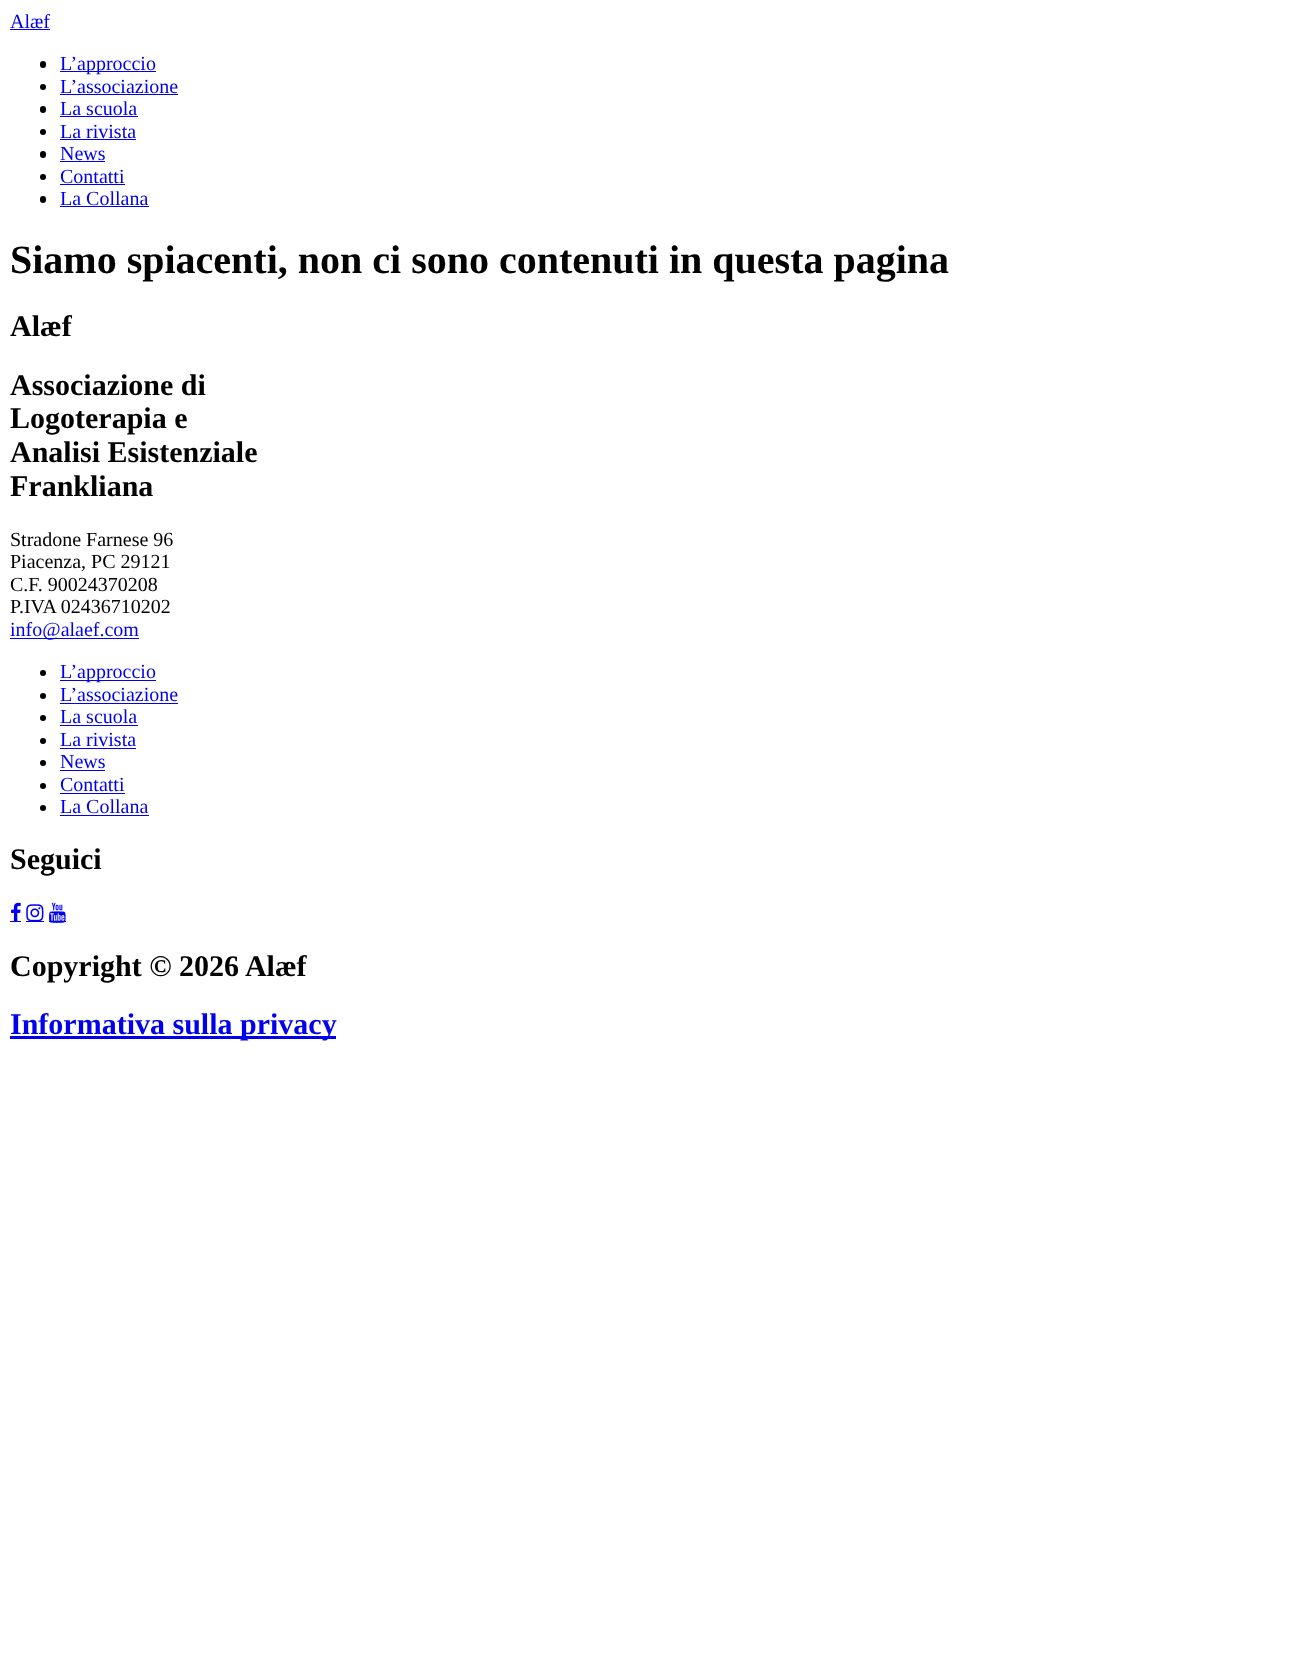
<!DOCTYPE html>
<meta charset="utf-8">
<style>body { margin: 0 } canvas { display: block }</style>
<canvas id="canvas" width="1296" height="1660"></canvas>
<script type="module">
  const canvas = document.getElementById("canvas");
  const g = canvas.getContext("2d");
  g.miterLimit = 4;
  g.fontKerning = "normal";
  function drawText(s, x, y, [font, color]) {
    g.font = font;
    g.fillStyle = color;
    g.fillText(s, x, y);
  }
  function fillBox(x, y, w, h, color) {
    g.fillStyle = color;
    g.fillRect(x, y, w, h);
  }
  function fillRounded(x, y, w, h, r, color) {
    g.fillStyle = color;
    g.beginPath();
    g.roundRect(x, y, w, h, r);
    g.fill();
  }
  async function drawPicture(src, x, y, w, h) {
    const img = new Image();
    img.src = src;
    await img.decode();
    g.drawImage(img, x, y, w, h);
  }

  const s1 = ["20px Liberation Serif", "#0000EE"];
  const s2 = ["bold 40px Liberation Serif", "#000000"];
  const s3 = ["bold 30px Liberation Serif", "#000000"];
  const s4 = ["20px Liberation Serif", "#000000"];
  const s5 = ["bold 30px Liberation Serif", "#0000EE"];

  fillBox(0, 0, 1296, 1660, "#FFFFFF");
  drawText("Alæf", 10, 28, s1);
  fillBox(10, 29, 40, 1, "#0000EE");
  fillRounded(40, 61, 6, 7, 3, "#000000");
  fillBox(60, 71, 96, 1, "#0000EE");
  drawText("L’approccio", 60, 70, s1);
  g.fillStyle = "#000000";
  g.beginPath();
  g.arc(43, 87, 3, 0, Math.PI * 2);
  g.fill();
  drawText("L’associazione", 60, 93, s1);
  fillBox(60, 94, 118, 1, "#0000EE");
  fillRounded(40, 106, 6, 7, 3, "#000000");
  drawText("La scuola", 60, 115, s1);
  fillBox(60, 116, 78, 1, "#0000EE");
  g.fillStyle = "#000000";
  g.beginPath();
  g.arc(43, 132, 3, 0, Math.PI * 2);
  g.fill();
  drawText("La rivista", 60, 138, s1);
  fillBox(60, 139, 76, 1, "#0000EE");
  fillRounded(40, 151, 6, 7, 3, "#000000");
  drawText("News", 60, 160, s1);
  fillBox(60, 161, 45, 1, "#0000EE");
  g.fillStyle = "#000000";
  g.beginPath();
  g.arc(43, 177, 3, 0, Math.PI * 2);
  g.fill();
  drawText("Contatti", 60, 183, s1);
  fillBox(60, 184, 65, 1, "#0000EE");
  fillRounded(40, 196, 6, 7, 3, "#000000");
  drawText("La Collana", 60, 205, s1);
  fillBox(60, 206, 89, 1, "#0000EE");
  drawText("Siamo spiacenti, non ci sono contenuti in questa pagina", 10, 273, s2);
  drawText("Alæf", 10, 336, s3);
  drawText("Associazione di", 10, 395, s3);
  drawText("Logoterapia e", 10, 428, s3);
  drawText("Analisi Esistenziale", 10, 462, s3);
  drawText("Frankliana", 10, 496, s3);
  drawText("Stradone Farnese 96", 10, 546, s4);
  drawText("Piacenza, PC 29121", 10, 568, s4);
  drawText("C.F. 90024370208", 10, 591, s4);
  drawText("P.IVA 02436710202", 10, 613, s4);
  fillBox(10, 638, 129, 1, "#0000EE");
  drawText("info@alaef.com", 10, 636, s1);
  g.fillStyle = "#000000";
  g.beginPath();
  g.arc(43, 673, 3, 0, Math.PI * 2);
  g.fill();
  fillBox(60, 680, 96, 1, "#0000EE");
  drawText("L’approccio", 60, 678, s1);
  g.fillStyle = "#000000";
  g.beginPath();
  g.arc(43, 696, 3, 0, Math.PI * 2);
  g.fill();
  drawText("L’associazione", 60, 701, s1);
  fillBox(60, 703, 118, 1, "#0000EE");
  g.fillStyle = "#000000";
  g.beginPath();
  g.arc(43, 718, 3, 0, Math.PI * 2);
  g.fill();
  drawText("La scuola", 60, 723, s1);
  fillBox(60, 725, 78, 1, "#0000EE");
  g.fillStyle = "#000000";
  g.beginPath();
  g.arc(43, 741, 3, 0, Math.PI * 2);
  g.fill();
  drawText("La rivista", 60, 746, s1);
  fillBox(60, 748, 76, 1, "#0000EE");
  g.fillStyle = "#000000";
  g.beginPath();
  g.arc(43, 763, 3, 0, Math.PI * 2);
  g.fill();
  drawText("News", 60, 768, s1);
  fillBox(60, 770, 45, 1, "#0000EE");
  g.fillStyle = "#000000";
  g.beginPath();
  g.arc(43, 786, 3, 0, Math.PI * 2);
  g.fill();
  drawText("Contatti", 60, 791, s1);
  fillBox(60, 793, 65, 1, "#0000EE");
  g.fillStyle = "#000000";
  g.beginPath();
  g.arc(43, 808, 3, 0, Math.PI * 2);
  g.fill();
  drawText("La Collana", 60, 813, s1);
  fillBox(60, 815, 89, 1, "#0000EE");
  drawText("Seguici", 10, 869, s3);
  await drawPicture("pic1.png", 11, 902, 10, 19);
  fillBox(10, 921, 11, 1, "#0000EE");
  await drawPicture("pic2.png", 26, 904, 18, 17);
  fillBox(26, 921, 18, 1, "#0000EE");
  fillBox(49, 921, 17, 1, "#0000EE");
  await drawPicture("pic3.png", 49, 902, 17, 21);
  drawText("Copyright © 2026 Alæf", 10, 976, s3);
  fillBox(10, 1036, 326, 3, "#0000EE");
  drawText("Informativa sulla privacy", 10, 1034, s5);
</script>
